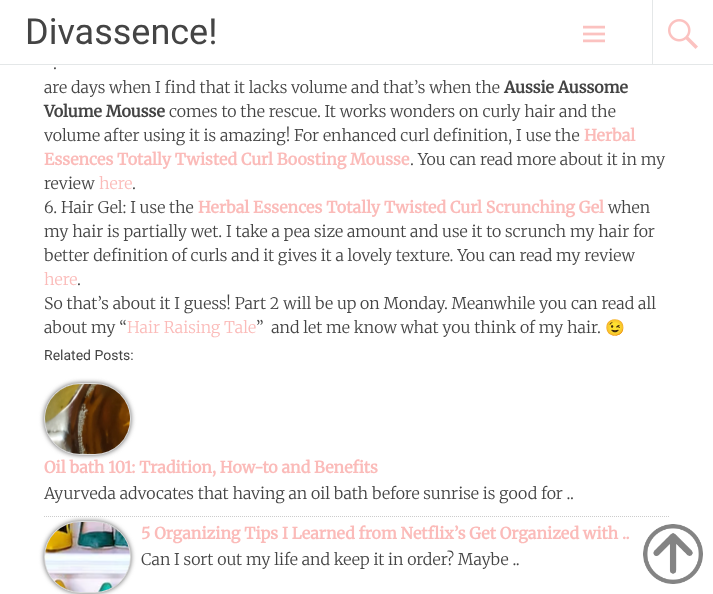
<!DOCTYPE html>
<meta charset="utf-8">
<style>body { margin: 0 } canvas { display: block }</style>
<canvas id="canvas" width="713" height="594"></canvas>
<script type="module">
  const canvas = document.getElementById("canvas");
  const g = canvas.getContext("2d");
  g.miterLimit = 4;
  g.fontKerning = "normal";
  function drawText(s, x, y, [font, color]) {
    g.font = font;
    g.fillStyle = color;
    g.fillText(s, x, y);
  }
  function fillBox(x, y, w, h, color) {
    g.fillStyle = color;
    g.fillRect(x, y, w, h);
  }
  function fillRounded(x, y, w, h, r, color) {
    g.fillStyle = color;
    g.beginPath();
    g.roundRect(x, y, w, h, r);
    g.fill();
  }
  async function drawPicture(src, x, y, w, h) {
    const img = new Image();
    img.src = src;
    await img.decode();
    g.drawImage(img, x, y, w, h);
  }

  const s1 = ["36px Roboto", "#444444"];
  const s2 = ["300 16px Merriweather", "#444444"];
  const s3 = ["bold 16px Merriweather", "#444444"];
  const s4 = ["bold 16px Merriweather", "#FBBBB9"];
  const s5 = ["300 16px Merriweather", "#FBBBB9"];
  const s6 = ["16px Noto Color Emoji", "#444444"];
  const s7 = ["14px Roboto", "#444444"];

  fillBox(0, 0, 713, 594, "#FFFFFF");
  fillBox(0, 64, 713, 1, "rgba(225, 228, 230, 0.9)");
  drawText("Divassence!", 25, 44, s1);
  await drawPicture("pic1.png", 583, 25, 22, 18);
  fillBox(652, 0, 1, 64, "rgba(225, 228, 230, 0.9)");
  await drawPicture("pic2.png", 668, 19, 30, 30);
  drawText(".", 53, 69, s2);
  drawText("are days when I find that it lacks volume and that’s when the", 44, 93, s2);
  drawText("Aussie Aussome", 504, 93, s3);
  drawText("Volume Mousse", 44, 117, s3);
  drawText("comes to the rescue. It works wonders on curly hair and the", 169, 117, s2);
  drawText("volume after using it is amazing! For enhanced curl definition, I use the", 44, 141, s2);
  drawText("Herbal", 584, 141, s4);
  drawText("Essences Totally Twisted Curl Boosting Mousse", 44, 165, s4);
  drawText(". You can read more about it in my", 410, 165, s2);
  drawText("review", 44, 189, s2);
  drawText("here", 99, 189, s5);
  drawText(".", 132, 189, s2);
  drawText("6. Hair Gel: I use the", 44, 213, s2);
  drawText("Herbal Essences Totally Twisted Curl Scrunching Gel", 198, 213, s4);
  drawText("when", 608, 213, s2);
  drawText("my hair is partially wet. I take a pea size amount and use it to scrunch my hair for", 44, 237, s2);
  drawText("better definition of curls and it gives it a lovely texture. You can read my review", 44, 261, s2);
  drawText("here", 44, 285, s5);
  drawText(".", 77, 285, s2);
  drawText("So that’s about it I guess! Part 2 will be up on Monday. Meanwhile you can read all", 44, 309, s2);
  drawText("about my “", 44, 333, s2);
  drawText("Hair Raising Tale", 127, 333, s5);
  drawText("”  and let me know what you think of my hair.", 256, 333, s2);
  drawText("😉", 605, 333, s6);
  drawText("Related Posts:", 44, 360, s7);
  g.beginPath();
  g.moveTo(44, 516.5);
  g.lineTo(669, 516.5);
  g.strokeStyle = "#CCCCCC";
  g.setLineDash([1, 1]);
  g.stroke();
  g.fillStyle = "#666666";
  g.filter = "blur(2.5px)";
  g.beginPath();
  g.roundRect(44, 383, 87, 72, 36);
  g.fill();
  g.filter = "none";
  g.beginPath();
  g.roundRect(44.5, 383.5, 86, 71, 35.5);
  g.strokeStyle = "#DDDDDD";
  g.setLineDash([]);
  g.stroke();
  fillRounded(45, 384, 85, 70, 35, "#FFFFFF");
  await drawPicture("pic3.png", 45, 384, 85, 70);
  drawText("Oil bath 101: Tradition, How-to and Benefits", 44, 473, s4);
  drawText("Ayurveda advocates that having an oil bath before sunrise is good for ..", 44, 499, s2);
  g.fillStyle = "#666666";
  g.filter = "blur(2.5px)";
  g.beginPath();
  g.roundRect(44, 521, 87, 72, 36);
  g.fill();
  g.filter = "none";
  g.beginPath();
  g.roundRect(44.5, 521.5, 86, 71, 35.5);
  g.stroke();
  fillRounded(45, 522, 85, 70, 35, "#FFFFFF");
  await drawPicture("pic4.png", 45, 522, 85, 70);
  drawText("5 Organizing Tips I Learned from Netflix’s Get Organized with ..", 141, 539, s4);
  drawText("Can I sort out my life and keep it in order? Maybe ..", 141, 565, s2);
  await drawPicture("pic5.png", 643, 524, 60, 60);
</script>
